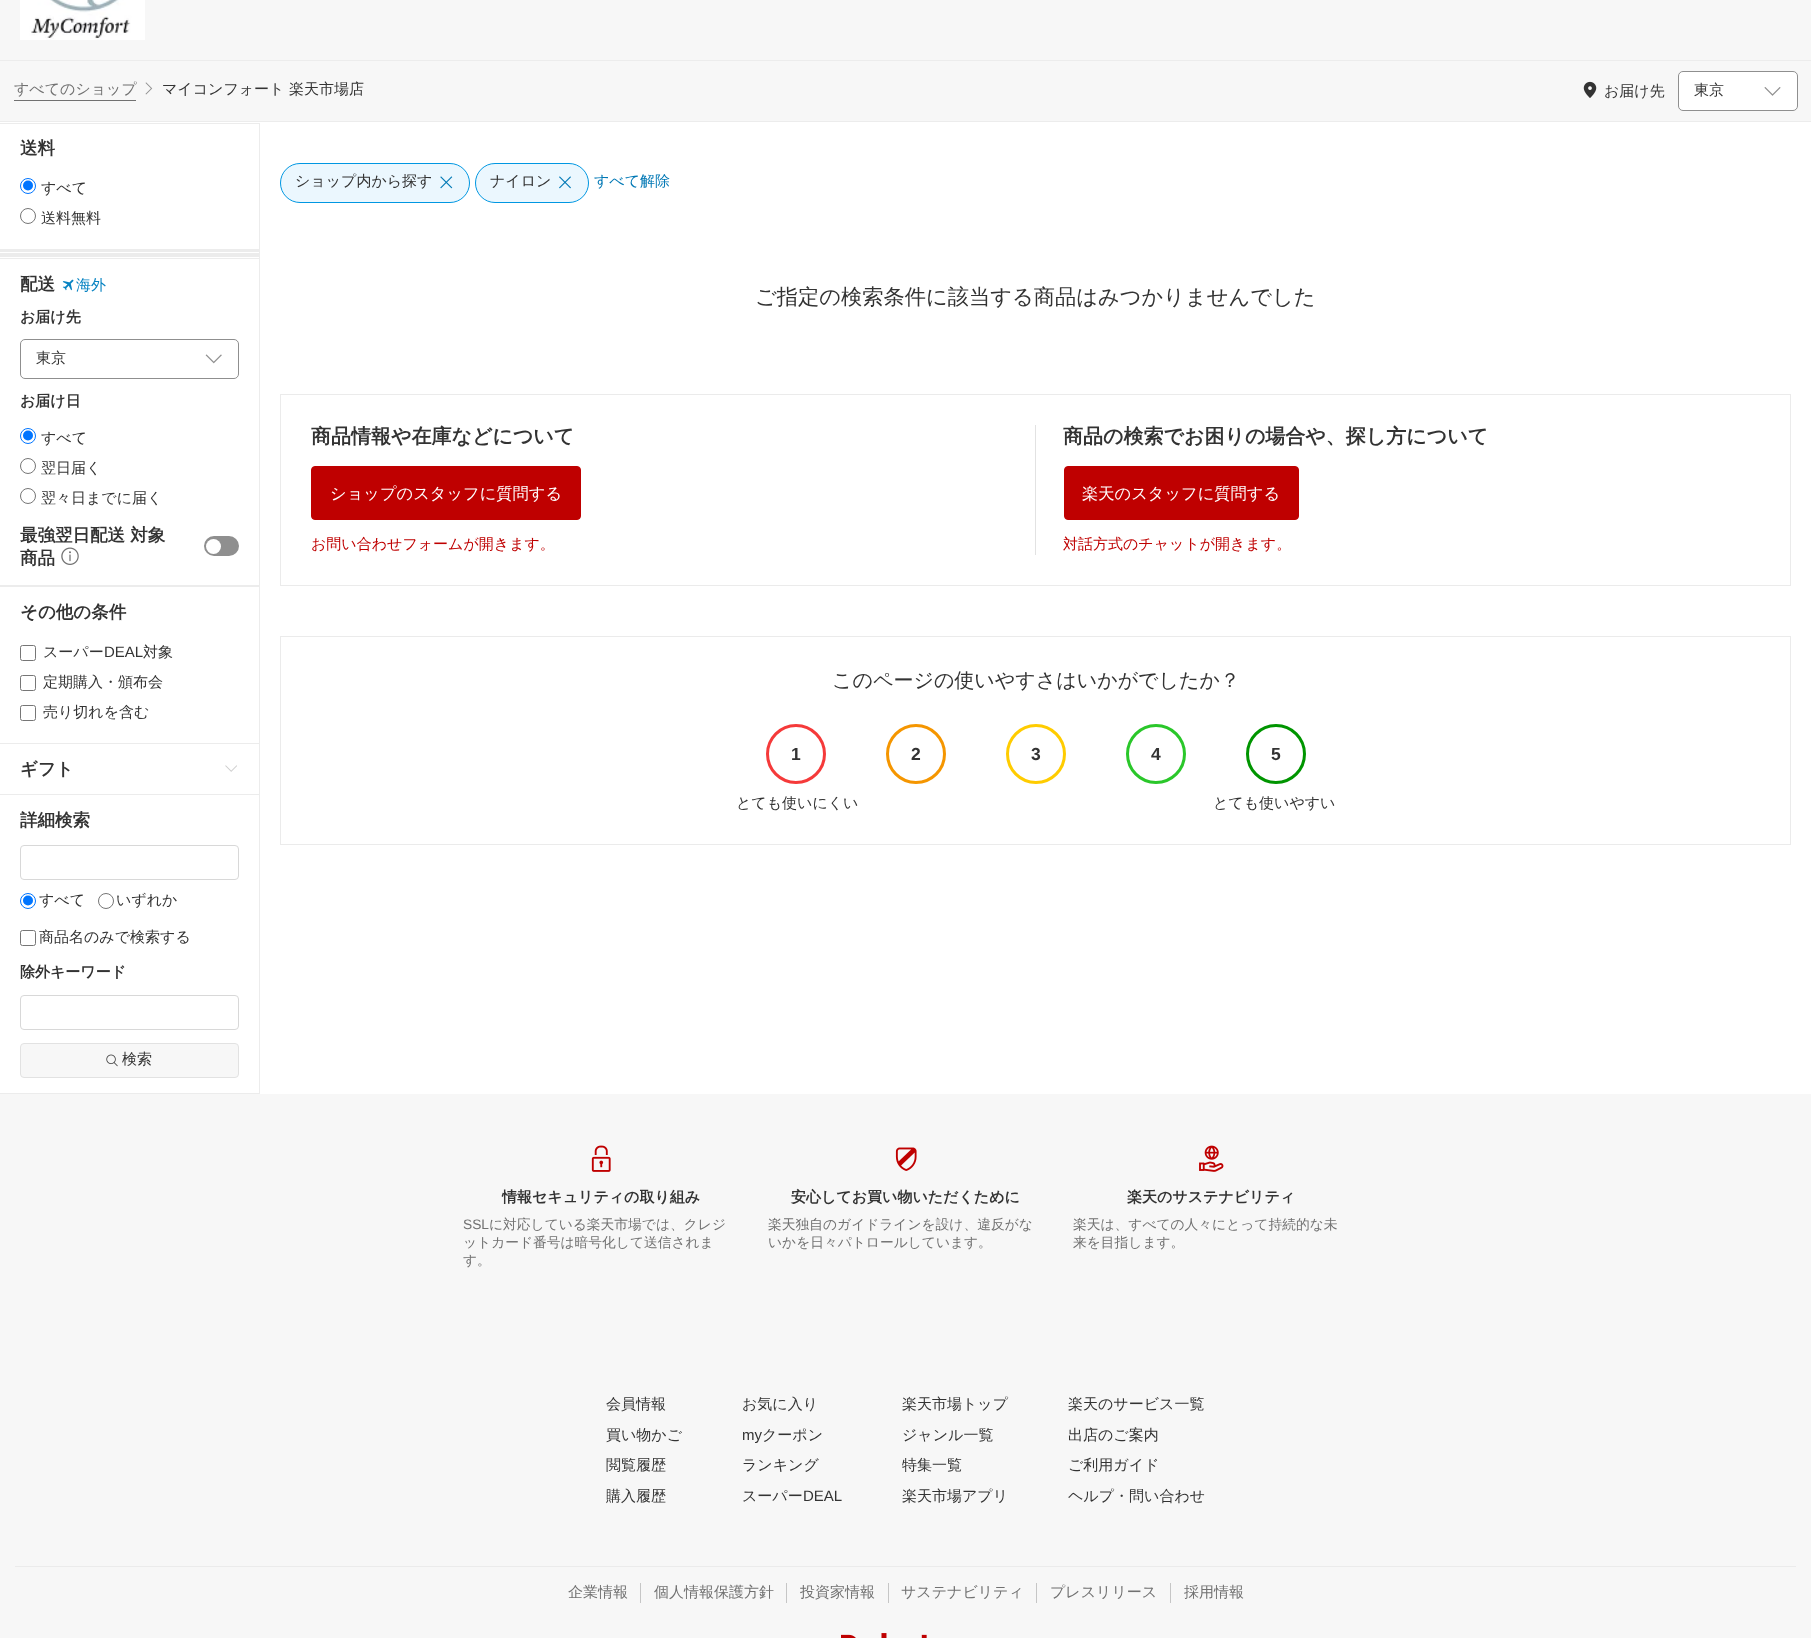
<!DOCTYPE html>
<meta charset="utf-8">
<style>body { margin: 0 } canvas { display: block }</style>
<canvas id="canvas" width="1811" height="1638"></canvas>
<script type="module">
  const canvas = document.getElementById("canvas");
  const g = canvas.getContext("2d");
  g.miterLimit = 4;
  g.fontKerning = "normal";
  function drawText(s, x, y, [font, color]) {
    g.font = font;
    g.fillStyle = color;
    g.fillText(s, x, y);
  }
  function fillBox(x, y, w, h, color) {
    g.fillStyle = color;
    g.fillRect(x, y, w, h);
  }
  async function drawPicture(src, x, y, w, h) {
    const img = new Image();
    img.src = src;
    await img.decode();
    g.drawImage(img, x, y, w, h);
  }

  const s1 = ["500 15px WenQuanYi Zen Hei", "#717171"];
  const s2 = ["500 15px WenQuanYi Zen Hei", "#333333"];
  const s3 = ["bold 17.5px WenQuanYi Zen Hei", "#333333"];
  const s4 = ["500 15px WenQuanYi Zen Hei", "#0783C2"];
  const s5 = ["bold 15px WenQuanYi Zen Hei", "#333333"];
  const s6 = ["15px Liberation Sans", "#333333"];
  const s7 = ["500 15px WenQuanYi Zen Hei", "#0078B5"];
  const s8 = ["500 21.25px WenQuanYi Zen Hei", "#333333"];
  const s9 = ["bold 20px WenQuanYi Zen Hei", "#333333"];
  const s10 = ["500 16.25px WenQuanYi Zen Hei", "#FFFFFF"];
  const s11 = ["500 15px WenQuanYi Zen Hei", "#BF0000"];
  const s12 = ["500 20px WenQuanYi Zen Hei", "#333333"];
  const s13 = ["bold 17.5px Liberation Sans", "#333333"];
  const s14 = ["13.75px Liberation Sans", "#717171"];
  const s15 = ["500 13.75px WenQuanYi Zen Hei", "#717171"];

  fillBox(0, 0, 1811, 1638, "#F7F7F7");
  fillBox(0, 60, 1811, 1, "#ECECEC");
  await drawPicture("pic1.png", 20, 0, 125, 40);
  fillBox(14, 100, 122, 1, "#717171");
  drawText("すべてのショップ", 14, 94, s1);
  await drawPicture("pic2.png", 145, 82, 8, 13);
  drawText("マイコンフォート 楽天市場店", 162, 94, s2);
  await drawPicture("pic3.png", 1583, 81, 14, 17);
  drawText("お届け先", 1604, 96, s2);
  g.fillStyle = "#FFFFFF";
  g.beginPath();
  g.roundRect(1678.5, 71.5, 119, 39, 4.5);
  g.fill();
  g.strokeStyle = "#8F8F8F";
  g.stroke();
  drawText("東京", 1694, 95, s2);
  await drawPicture("pic4.png", 1764, 87, 17, 9);
  fillBox(0, 122, 1811, 972, "#FFFFFF");
  fillBox(0, 121, 1811, 1, "#ECECEC");
  fillBox(259, 123, 1, 971, "#ECECEC");
  fillBox(0, 1093, 260, 1, "#ECECEC");
  fillBox(0, 123, 259, 1, "#ECECEC");
  drawText("送料", 20, 154, s3);
  g.beginPath();
  g.arc(28, 186, 7.5, 0, Math.PI * 2);
  g.strokeStyle = "#0075FF";
  g.stroke();
  g.fillStyle = "#0075FF";
  g.beginPath();
  g.arc(28, 185.5, 5, 0, Math.PI * 2);
  g.fill();
  drawText("すべて", 41, 193, s2);
  g.beginPath();
  g.arc(28, 216, 7.5, 0, Math.PI * 2);
  g.strokeStyle = "#767676";
  g.stroke();
  drawText("送料無料", 41, 223, s2);
  fillBox(0, 249, 259, 3, "#ECECEC");
  fillBox(0, 253, 259, 4, "#ECECEC");
  fillBox(0, 258, 259, 1, "#ECECEC");
  drawText("配送", 20, 290, s3);
  await drawPicture("pic5.png", 62, 279, 12, 12);
  drawText("海外", 76, 290, s4);
  drawText("お届け先", 20, 322, s5);
  g.beginPath();
  g.roundRect(20.5, 339.5, 218, 39, 4.5);
  g.strokeStyle = "#8F8F8F";
  g.stroke();
  drawText("東京", 36, 363, s2);
  await drawPicture("pic6.png", 205, 354, 17, 10);
  drawText("お届け日", 20, 406, s5);
  g.beginPath();
  g.arc(28, 436, 7.5, 0, Math.PI * 2);
  g.strokeStyle = "#0075FF";
  g.stroke();
  g.fillStyle = "#0075FF";
  g.beginPath();
  g.arc(28, 435.5, 5, 0, Math.PI * 2);
  g.fill();
  drawText("すべて", 41, 443, s2);
  g.beginPath();
  g.arc(28, 466, 7.5, 0, Math.PI * 2);
  g.strokeStyle = "#767676";
  g.stroke();
  drawText("翌日届く", 41, 473, s2);
  g.beginPath();
  g.arc(28, 496, 7.5, 0, Math.PI * 2);
  g.stroke();
  drawText("翌々日までに届く", 41, 503, s2);
  drawText("最強翌日配送 対象", 20, 541, s3);
  drawText("商品", 20, 564, s3);
  await drawPicture("pic7.png", 61, 547, 18, 18);
  g.fillStyle = "#8F8F8F";
  g.beginPath();
  g.roundRect(205.5, 537.5, 32, 17, 8.5);
  g.fill();
  g.strokeStyle = "#8F8F8F";
  g.lineWidth = 3;
  g.stroke();
  g.fillStyle = "#FFFFFF";
  g.beginPath();
  g.arc(213.5, 546.5, 7.5, 0, Math.PI * 2);
  g.fill();
  fillBox(0, 585, 259, 2, "#ECECEC");
  drawText("その他の条件", 20, 618, s3);
  g.beginPath();
  g.roundRect(20.5, 645.5, 15, 15, 2);
  g.strokeStyle = "#767676";
  g.lineWidth = 1;
  g.stroke();
  drawText("スーパー", 43, 657, s2);
  drawText("DEAL", 104, 657, s6);
  drawText("対象", 143, 657, s2);
  g.beginPath();
  g.roundRect(20.5, 675.5, 15, 15, 2);
  g.stroke();
  drawText("定期購入・頒布会", 43, 687, s2);
  g.beginPath();
  g.roundRect(20.5, 705.5, 15, 15, 2);
  g.stroke();
  drawText("売り切れを含む", 43, 717, s2);
  fillBox(0, 743, 259, 1, "#ECECEC");
  drawText("ギフト", 20, 775, s3);
  await drawPicture("pic8.png", 225, 765, 12, 7);
  fillBox(0, 794, 259, 1, "#ECECEC");
  drawText("詳細検索", 20, 826, s3);
  g.beginPath();
  g.roundRect(20.5, 845.5, 218, 34, 3.5);
  g.strokeStyle = "#D8D8D8";
  g.stroke();
  g.beginPath();
  g.arc(28, 901, 7.5, 0, Math.PI * 2);
  g.strokeStyle = "#0075FF";
  g.stroke();
  g.fillStyle = "#0075FF";
  g.beginPath();
  g.arc(28, 900.5, 5, 0, Math.PI * 2);
  g.fill();
  drawText("すべて", 39, 905, s2);
  g.beginPath();
  g.arc(106, 901, 7.5, 0, Math.PI * 2);
  g.strokeStyle = "#767676";
  g.stroke();
  drawText("いずれか", 116, 905, s2);
  g.beginPath();
  g.roundRect(20.5, 930.5, 15, 15, 2);
  g.stroke();
  drawText("商品名のみで検索する", 39, 942, s2);
  drawText("除外キーワード", 20, 977, s5);
  g.beginPath();
  g.roundRect(20.5, 995.5, 218, 34, 3.5);
  g.strokeStyle = "#D8D8D8";
  g.stroke();
  g.fillStyle = "#F7F7F7";
  g.beginPath();
  g.roundRect(20.5, 1043.5, 218, 34, 3.5);
  g.fill();
  g.strokeStyle = "#E2E2E2";
  g.stroke();
  await drawPicture("pic9.png", 106, 1054, 12, 13);
  drawText("検索", 122, 1064, s2);
  g.fillStyle = "#EBF7FE";
  g.beginPath();
  g.roundRect(280.5, 163.5, 189, 39, 19.5);
  g.fill();
  g.strokeStyle = "#0097E2";
  g.stroke();
  drawText("ショップ内から探す", 295, 186, s2);
  await drawPicture("pic10.png", 440, 176, 13, 13);
  g.fillStyle = "#EBF7FE";
  g.beginPath();
  g.roundRect(475.5, 163.5, 113, 39, 19.5);
  g.fill();
  g.stroke();
  drawText("ナイロン", 490, 186, s2);
  await drawPicture("pic11.png", 559, 176, 12, 13);
  drawText("すべて解除", 594, 186, s7);
  drawText("ご指定の検索条件に該当する商品はみつかりませんでした", 755, 304, s8);
  g.strokeStyle = "#EBEBEB";
  g.strokeRect(280.5, 394.5, 1510, 191);
  fillBox(1035, 425, 1, 130, "#E2E2E2");
  drawText("商品情報や在庫などについて", 311, 443, s9);
  g.fillStyle = "#BF0000";
  g.beginPath();
  g.roundRect(311.5, 466.5, 269, 53, 3.5);
  g.fill();
  g.strokeStyle = "#BF0000";
  g.stroke();
  drawText("ショップのスタッフに質問する", 330, 499, s10);
  drawText("お問い合わせフォームが開きます。", 311, 549, s11);
  drawText("商品の検索でお困りの場合や、探し方について", 1063, 443, s9);
  g.fillStyle = "#BF0000";
  g.beginPath();
  g.roundRect(1064.5, 466.5, 234, 53, 3.5);
  g.fill();
  g.stroke();
  drawText("楽天のスタッフに質問する", 1082, 499, s10);
  drawText("対話方式のチャットが開きます。", 1063, 549, s11);
  g.strokeStyle = "#EBEBEB";
  g.strokeRect(280.5, 636.5, 1510, 208);
  drawText("このページの使いやすさはいかがでしたか？", 832, 687, s12);
  g.beginPath();
  g.arc(796, 754, 28.5, 0, Math.PI * 2);
  g.strokeStyle = "#F53A3A";
  g.lineWidth = 3;
  g.stroke();
  drawText("1", 791, 760, s13);
  g.beginPath();
  g.arc(916, 754, 28.5, 0, Math.PI * 2);
  g.strokeStyle = "#F59600";
  g.stroke();
  drawText("2", 911, 760, s13);
  g.beginPath();
  g.arc(1036, 754, 28.5, 0, Math.PI * 2);
  g.strokeStyle = "#FFCC00";
  g.stroke();
  drawText("3", 1031, 760, s13);
  g.beginPath();
  g.arc(1156, 754, 28.5, 0, Math.PI * 2);
  g.strokeStyle = "#2AC72A";
  g.stroke();
  drawText("4", 1151, 760, s13);
  g.beginPath();
  g.arc(1276, 754, 28.5, 0, Math.PI * 2);
  g.strokeStyle = "#009500";
  g.stroke();
  drawText("5", 1271, 760, s13);
  drawText("とても使いにくい", 736, 808, s2);
  drawText("とても使いやすい", 1213, 808, s2);
  await drawPicture("pic12.png", 591, 1145, 20, 27);
  drawText("情報セキュリティの取り組み", 502, 1202, s5);
  drawText("SSL", 463, 1229, s14);
  drawText("に対応している楽天市場では、クレジ", 489, 1229, s15);
  drawText("ットカード番号は暗号化して送信されま", 463, 1247, s15);
  drawText("す。", 463, 1265, s15);
  await drawPicture("pic13.png", 895, 1147, 22, 24);
  drawText("安心してお買い物いただくために", 791, 1202, s5);
  drawText("楽天独自のガイドラインを設け、違反がな", 768, 1229, s15);
  drawText("いかを日々パトロールしています。", 768, 1247, s15);
  await drawPicture("pic14.png", 1199, 1145, 25, 27);
  drawText("楽天のサステナビリティ", 1127, 1202, s5);
  drawText("楽天は、すべての人々にとって持続的な未", 1073, 1229, s15);
  drawText("来を目指します。", 1073, 1247, s15);
  fillBox(15, 1566, 1781, 1, "#EBEBEB");
  drawText("会員情報", 606, 1409, s2);
  drawText("買い物かご", 606, 1440, s2);
  drawText("閲覧履歴", 606, 1470, s2);
  drawText("購入履歴", 606, 1501, s2);
  drawText("お気に入り", 742, 1409, s2);
  drawText("my", 742, 1440, s6);
  drawText("クーポン", 762, 1440, s2);
  drawText("ランキング", 742, 1470, s2);
  drawText("スーパー", 742, 1501, s2);
  drawText("DEAL", 803, 1501, s6);
  drawText("楽天市場トップ", 902, 1409, s2);
  drawText("ジャンル一覧", 902, 1440, s2);
  drawText("特集一覧", 902, 1470, s2);
  drawText("楽天市場アプリ", 902, 1501, s2);
  drawText("楽天のサービス一覧", 1068, 1409, s2);
  drawText("出店のご案内", 1068, 1440, s2);
  drawText("ご利用ガイド", 1068, 1470, s2);
  drawText("ヘルプ・問い合わせ", 1068, 1501, s2);
  fillBox(640, 1583, 1, 20, "#C6C6C6");
  drawText("企業情報", 568, 1597, s1);
  fillBox(786, 1583, 1, 20, "#C6C6C6");
  drawText("個人情報保護方針", 654, 1597, s1);
  fillBox(888, 1583, 1, 20, "#C6C6C6");
  drawText("投資家情報", 800, 1597, s1);
  fillBox(1036, 1583, 1, 20, "#C6C6C6");
  drawText("サステナビリティ", 901, 1597, s1);
  fillBox(1170, 1583, 1, 20, "#C6C6C6");
  drawText("プレスリリース", 1050, 1597, s1);
  drawText("採用情報", 1184, 1597, s1);
  await drawPicture("pic15.png", 841, 1633, 86, 5);
</script>
